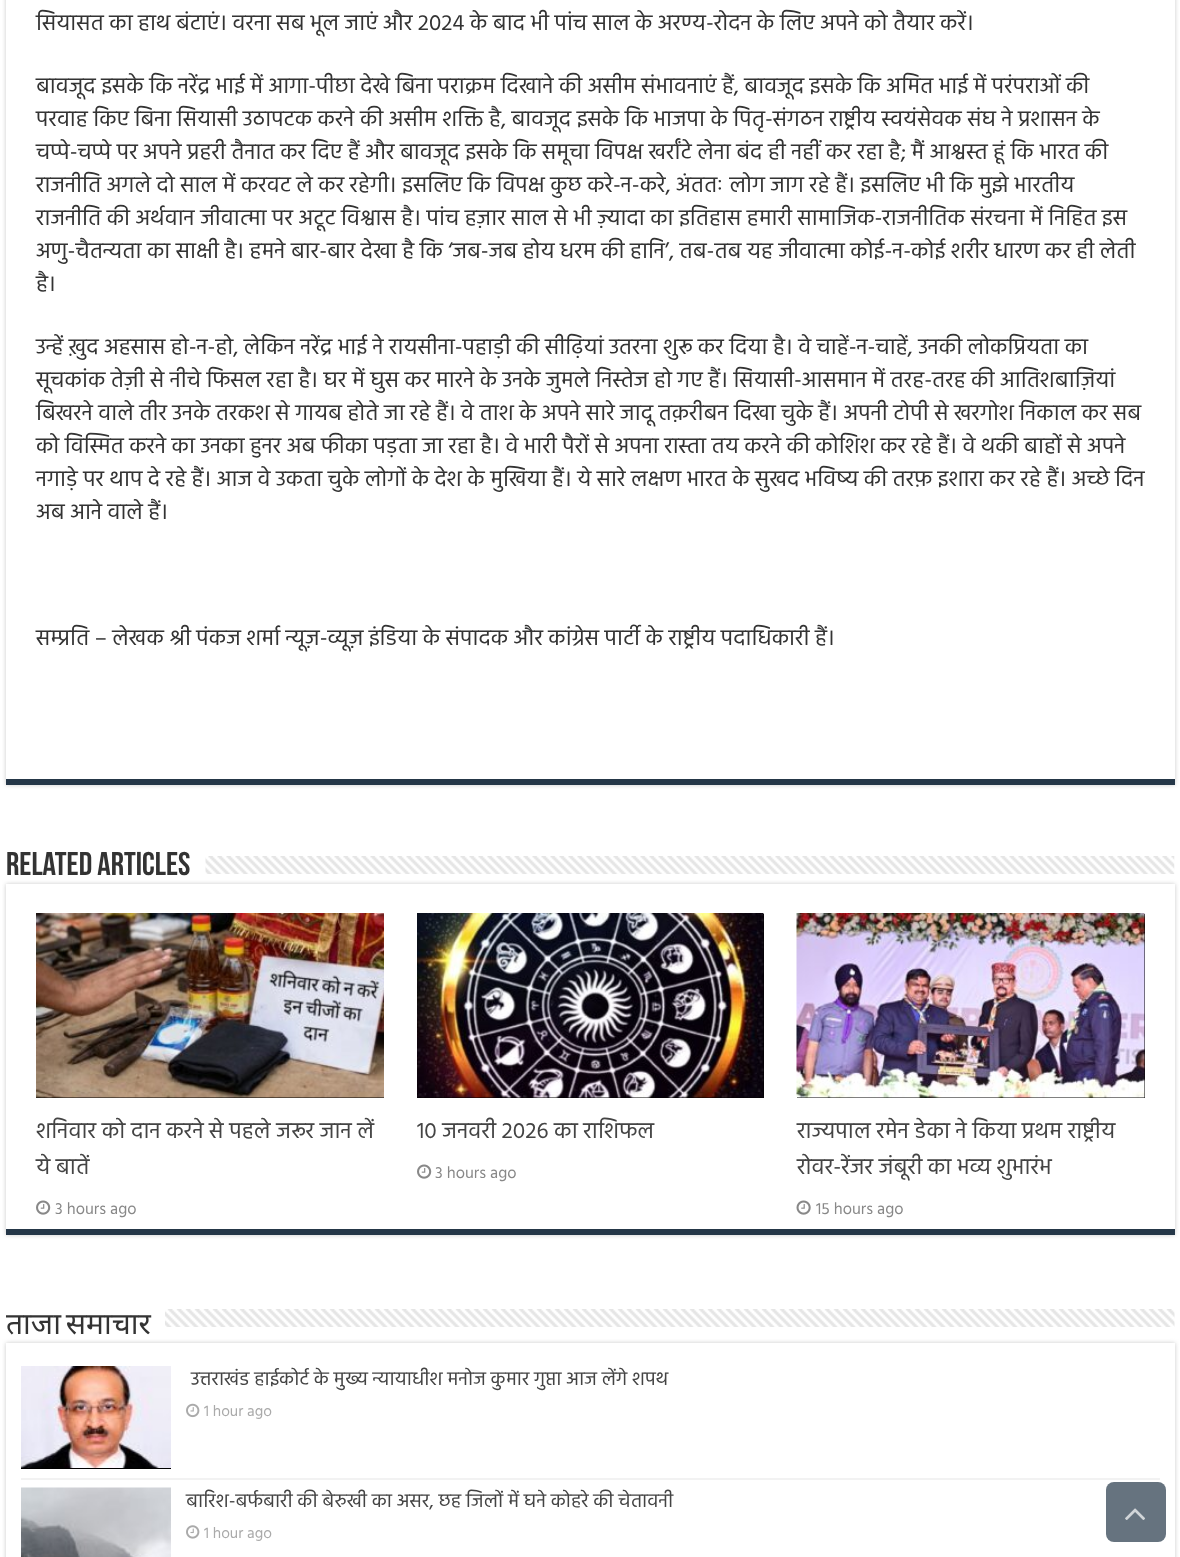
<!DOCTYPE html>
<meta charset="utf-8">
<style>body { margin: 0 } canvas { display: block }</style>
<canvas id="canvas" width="1180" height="1557"></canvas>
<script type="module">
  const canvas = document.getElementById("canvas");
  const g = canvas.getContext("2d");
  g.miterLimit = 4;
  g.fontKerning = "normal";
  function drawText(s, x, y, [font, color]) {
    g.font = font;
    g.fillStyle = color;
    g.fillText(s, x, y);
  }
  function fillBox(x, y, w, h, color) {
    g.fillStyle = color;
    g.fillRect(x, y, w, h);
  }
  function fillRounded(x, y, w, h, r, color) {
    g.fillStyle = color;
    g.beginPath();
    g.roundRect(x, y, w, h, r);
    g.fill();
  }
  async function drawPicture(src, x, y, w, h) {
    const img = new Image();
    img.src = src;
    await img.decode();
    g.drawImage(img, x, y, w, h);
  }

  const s1 = ["22.5px Hind", "#333333"];
  const s2 = ["bold 33px Bebas Neue", "#333333"];
  const s3 = ["22.8px Hind", "#444444"];
  const s4 = ["16.5px Hind", "#888888"];
  const s5 = ["30px Noto Sans", "#333333"];
  const s6 = ["19.5px Hind", "#444444"];
  const s7 = ["15.5px Hind", "#AAAAAA"];

  fillBox(0, 0, 1180, 1557, "#FFFFFF");
  g.fillStyle = "#CACACA";
  g.filter = "blur(2px)";
  g.beginPath();
  g.rect(6, -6, 1169, 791);
  g.fill();
  g.filter = "none";
  fillBox(6, 0, 1169, 779, "#FFFFFF");
  fillBox(6, 779, 1169, 6, "#253748");
  drawText("सियासत का हाथ बंटाएं। वरना सब भूल जाएं और 2024 के बाद भी पांच साल के अरण्य-रोदन के लिए अपने को तैयार करें।", 36, 30, s1);
  drawText("बावजूद इसके कि नरेंद्र भाई में आगा-पीछा देखे बिना पराक्रम दिखाने की असीम संभावनाएं हैं, बावजूद इसके कि अमित भाई में परंपराओं की", 36, 93, s1);
  drawText("परवाह किए बिना सियासी उठापटक करने की असीम शक्ति है, बावजूद इसके कि भाजपा के पितृ-संगठन राष्ट्रीय स्वयंसेवक संघ ने प्रशासन के", 36, 126, s1);
  drawText("चप्पे-चप्पे पर अपने प्रहरी तैनात कर दिए हैं और बावजूद इसके कि समूचा विपक्ष खर्रांटे लेना बंद ही नहीं कर रहा है; मैं आश्वस्त हूं कि भारत की", 36, 159, s1);
  drawText("राजनीति अगले दो साल में करवट ले कर रहेगी। इसलिए कि विपक्ष कुछ करे-न-करे, अंततः लोग जाग रहे हैं। इसलिए भी कि मुझे भारतीय", 36, 192, s1);
  drawText("राजनीति की अर्थवान जीवात्मा पर अटूट विश्वास है। पांच हज़ार साल से भी ज़्यादा का इतिहास हमारी सामाजिक-राजनीतिक संरचना में निहित इस", 36, 225, s1);
  drawText("अणु-चैतन्यता का साक्षी है। हमने बार-बार देखा है कि ‘जब-जब होय धरम की हानि’, तब-तब यह जीवात्मा कोई-न-कोई शरीर धारण कर ही लेती", 36, 258, s1);
  drawText("है।", 36, 291, s1);
  drawText("उन्हें ख़ुद अहसास हो-न-हो, लेकिन नरेंद्र भाई ने रायसीना-पहाड़ी की सीढ़ियां उतरना शुरू कर दिया है। वे चाहें-न-चाहें, उनकी लोकप्रियता का", 36, 354, s1);
  drawText("सूचकांक तेज़ी से नीचे फिसल रहा है। घर में घुस कर मारने के उनके जुमले निस्तेज हो गए हैं। सियासी-आसमान में तरह-तरह की आतिशबाज़ियां", 36, 387, s1);
  drawText("बिखरने वाले तीर उनके तरकश से गायब होते जा रहे हैं। वे ताश के अपने सारे जादू तक़रीबन दिखा चुके हैं। अपनी टोपी से खरगोश निकाल कर सब", 36, 420, s1);
  drawText("को विस्मित करने का उनका हुनर अब फीका पड़ता जा रहा है। वे भारी पैरों से अपना रास्ता तय करने की कोशिश कर रहे हैं। वे थकी बाहों से अपने", 36, 453, s1);
  drawText("नगाड़े पर थाप दे रहे हैं। आज वे उकता चुके लोगों के देश के मुखिया हैं। ये सारे लक्षण भारत के सुखद भविष्य की तरफ़ इशारा कर रहे हैं। अच्छे दिन", 36, 486, s1);
  drawText("अब आने वाले हैं।", 36, 519, s1);
  drawText("सम्प्रति – लेखक श्री पंकज शर्मा न्यूज़-व्यूज़ इंडिया के संपादक और कांग्रेस पार्टी के राष्ट्रीय पदाधिकारी हैं।", 36, 645, s1);
  drawText("Related Articles", 6, 875, s2);
  await drawPicture("pic1.png", 205, 856, 970, 18);
  g.fillStyle = "#CACACA";
  g.filter = "blur(2px)";
  g.beginPath();
  g.rect(6, 884, 1169, 351);
  g.fill();
  g.filter = "none";
  fillBox(6, 884, 1169, 345, "#FFFFFF");
  fillBox(6, 1229, 1169, 6, "#253748");
  fillBox(36, 1097, 348, 1, "#000000");
  await drawPicture("pic2.png", 36, 913, 348, 185);
  drawText("शनिवार को दान करने से पहले जरूर जान लें", 36, 1138, s3);
  drawText("ये बातें", 36, 1174, s3);
  await drawPicture("pic3.png", 36, 1200, 15, 15);
  drawText("3 hours ago", 55, 1214, s4);
  fillBox(417, 914, 347, 184, "#000000");
  await drawPicture("pic4.png", 417, 913, 347, 185);
  drawText("10 जनवरी 2026 का राशिफल", 417, 1138, s3);
  await drawPicture("pic3.png", 417, 1164, 15, 15);
  drawText("3 hours ago", 435, 1178, s4);
  fillBox(797, 914, 348, 184, "#000000");
  await drawPicture("pic5.png", 796, 913, 349, 185);
  drawText("राज्यपाल रमेन डेका ने किया प्रथम राष्ट्रीय", 797, 1138, s3);
  drawText("रोवर-रेंजर जंबूरी का भव्य शुभारंभ", 797, 1174, s3);
  await drawPicture("pic6.png", 796, 1200, 15, 15);
  drawText("15 hours ago", 816, 1214, s4);
  g.wordSpacing = "-3px";
  drawText("ताजा समाचार", 6, 1334, s5);
  await drawPicture("pic7.png", 165, 1309, 1010, 18);
  g.fillStyle = "#CACACA";
  g.filter = "blur(2px)";
  g.beginPath();
  g.rect(6, 1343, 1169, 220);
  g.fill();
  g.filter = "none";
  fillBox(6, 1343, 1169, 214, "#FFFFFF");
  fillBox(21, 1478, 1139, 2, "#F2F2F2");
  fillBox(21, 1468, 150, 1, "#000000");
  await drawPicture("pic8.png", 21, 1366, 150, 102);
  g.wordSpacing = "0px";
  drawText("उत्तराखंड हाईकोर्ट के मुख्य न्यायाधीश मनोज कुमार गुप्ता आज लेंगे शपथ", 191, 1385, s6);
  await drawPicture("pic9.png", 186, 1403, 14, 15);
  drawText("1 hour ago", 204, 1416, s7);
  await drawPicture("pic10.png", 21, 1487, 150, 70);
  drawText("बारिश-बर्फबारी की बेरुखी का असर, छह जिलों में घने कोहरे की चेतावनी", 186, 1507, s6);
  await drawPicture("pic11.png", 186, 1525, 14, 14);
  drawText("1 hour ago", 204, 1538, s7);
  fillRounded(1106, 1482, 60, 60, 8, "#66737F");
  await drawPicture("pic12.png", 1125, 1508, 20, 12);
</script>
